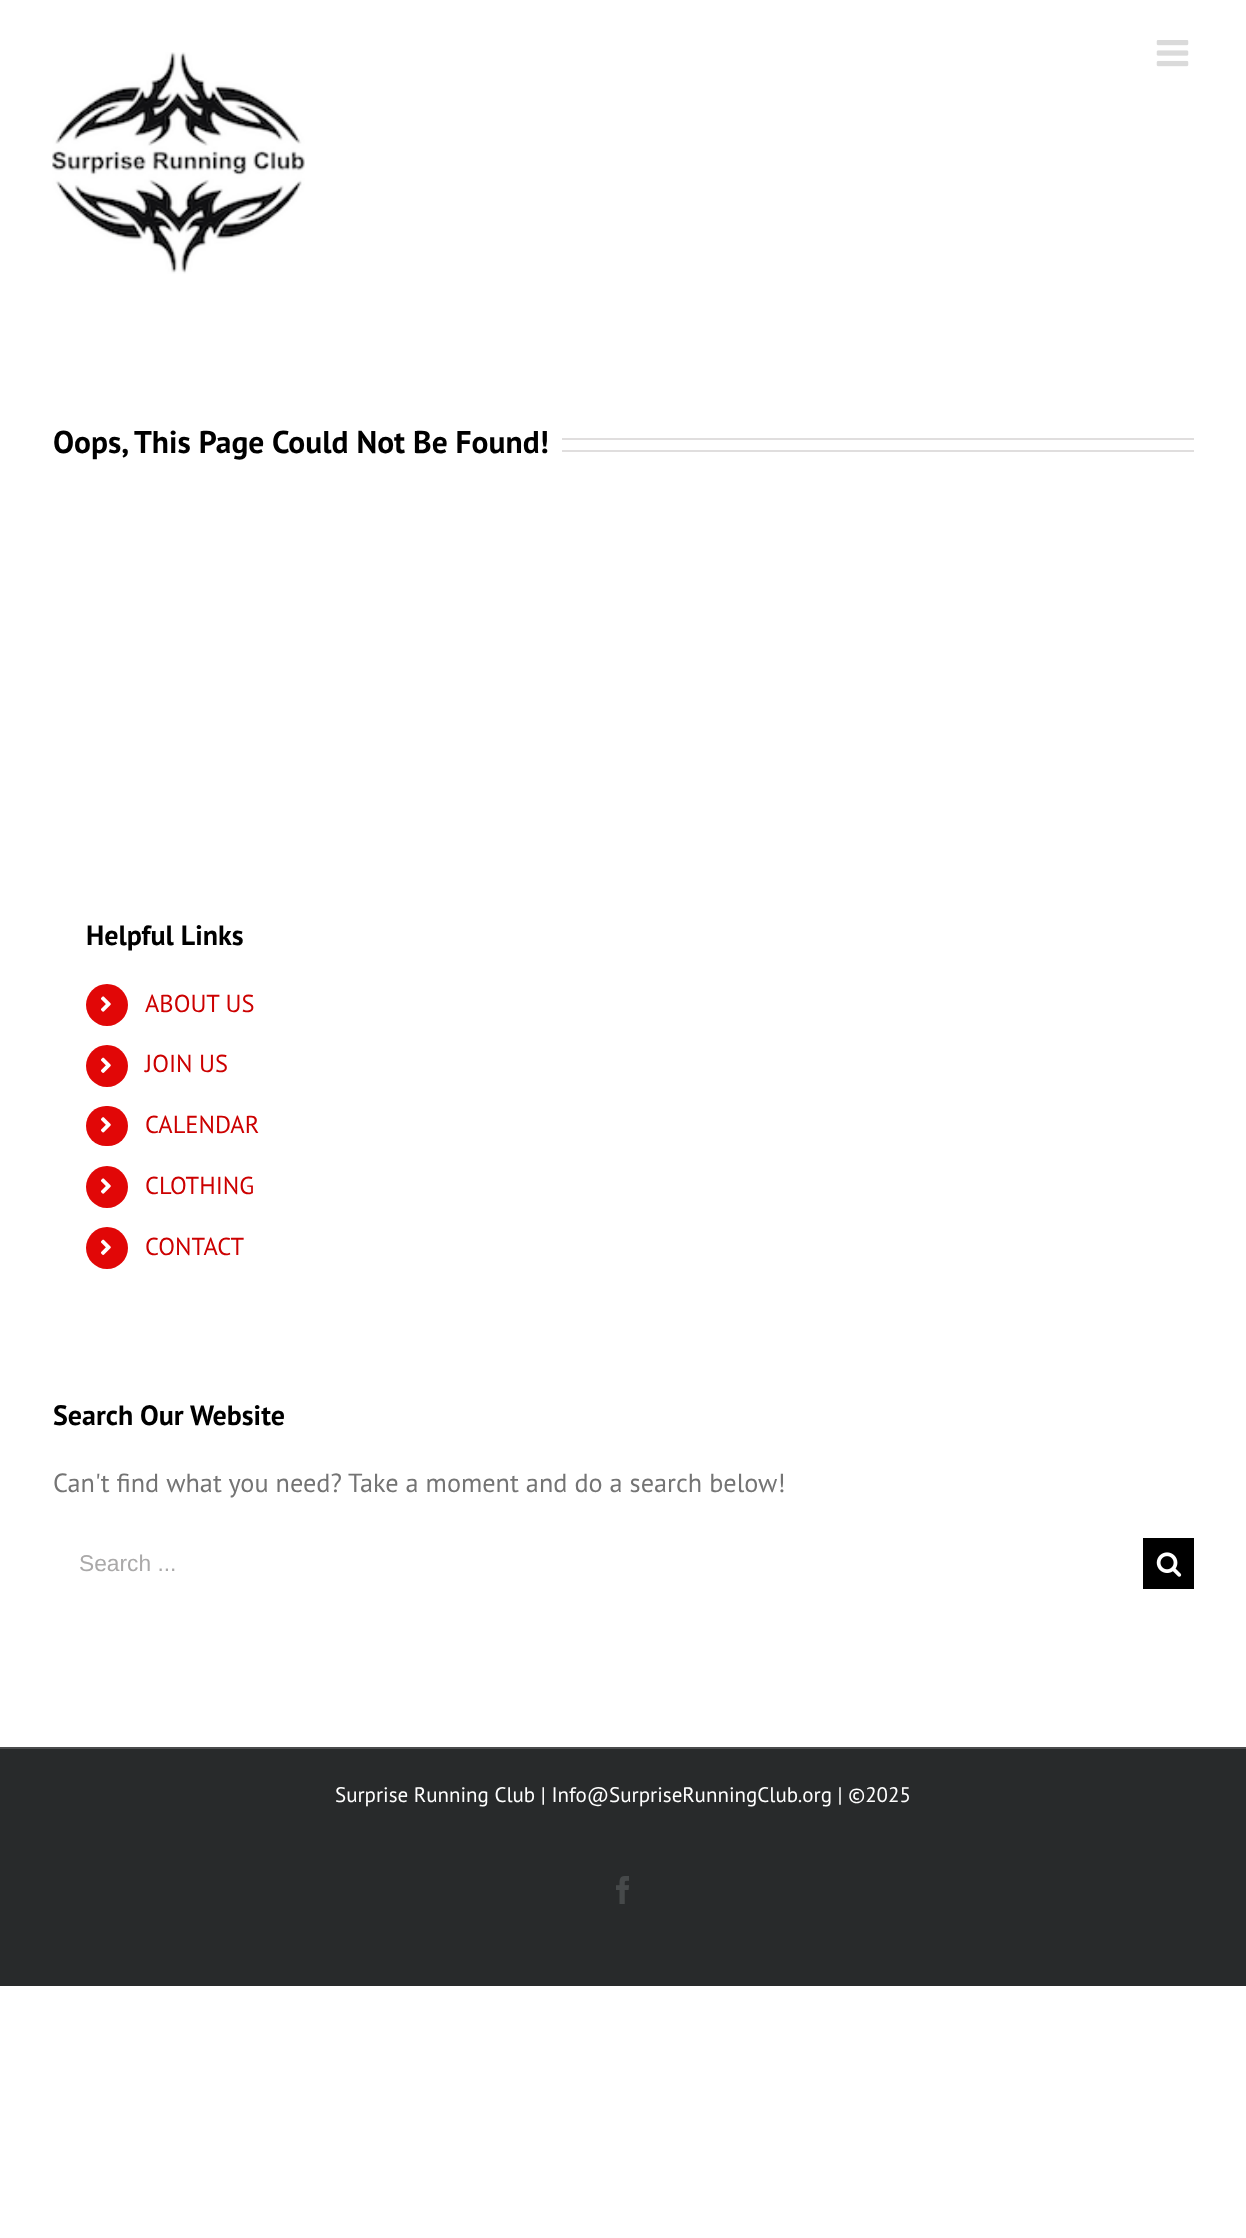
<!DOCTYPE html>
<meta charset="utf-8">
<style>body { margin: 0 } canvas { display: block }</style>
<canvas id="canvas" width="1246" height="2238"></canvas>
<script type="module">
  const canvas = document.getElementById("canvas");
  const g = canvas.getContext("2d");
  g.miterLimit = 4;
  g.fontKerning = "normal";
  function drawText(s, x, y, [font, color]) {
    g.font = font;
    g.fillStyle = color;
    g.fillText(s, x, y);
  }
  function fillBox(x, y, w, h, color) {
    g.fillStyle = color;
    g.fillRect(x, y, w, h);
  }
  function fillRounded(x, y, w, h, r, color) {
    g.fillStyle = color;
    g.beginPath();
    g.roundRect(x, y, w, h, r);
    g.fill();
  }
  async function drawPicture(src, x, y, w, h) {
    const img = new Image();
    img.src = src;
    await img.decode();
    g.drawImage(img, x, y, w, h);
  }

  const s1 = ["bold 31.5px PT Sans", "#000000"];
  const s2 = ["bold 28px PT Sans", "#000000"];
  const s3 = ["24.5px PT Sans", "#CC0000"];
  const s4 = ["26.25px PT Sans", "#747474"];
  const s5 = ["22.75px Liberation Sans", "#AAA9A9"];
  const s6 = ["21px PT Sans", "#FFFFFF"];

  fillBox(0, 0, 1246, 2238, "#FFFFFF");
  await drawPicture("pic1.png", 52, 52, 253, 222);
  await drawPicture("pic2.png", 1156, 40, 33, 27);
  drawText("Oops, This Page Could Not Be Found!", 53, 453, s1);
  fillBox(562, 438, 632, 2, "#E0DEDE");
  fillBox(562, 450, 632, 2, "#E0DEDE");
  drawText("Helpful Links", 86, 945, s2);
  g.fillStyle = "#E10707";
  g.beginPath();
  g.arc(107, 1005, 21, 0, Math.PI * 2);
  g.fill();
  await drawPicture("pic3.png", 101, 996, 10, 16);
  drawText("ABOUT US", 145, 1012, s3);
  g.fillStyle = "#E10707";
  g.beginPath();
  g.arc(107, 1066, 21, 0, Math.PI * 2);
  g.fill();
  await drawPicture("pic4.png", 101, 1057, 10, 16);
  drawText("JOIN US", 145, 1072, s3);
  fillRounded(86, 1106, 42, 40, 20, "#E10707");
  await drawPicture("pic5.png", 101, 1117, 10, 16);
  drawText("CALENDAR", 145, 1133, s3);
  g.fillStyle = "#E10707";
  g.beginPath();
  g.arc(107, 1187, 21, 0, Math.PI * 2);
  g.fill();
  await drawPicture("pic3.png", 101, 1178, 10, 16);
  drawText("CLOTHING", 145, 1194, s3);
  g.fillStyle = "#E10707";
  g.beginPath();
  g.arc(107, 1248, 21, 0, Math.PI * 2);
  g.fill();
  await drawPicture("pic4.png", 101, 1239, 10, 16);
  drawText("CONTACT", 145, 1255, s3);
  drawText("Search Our Website", 53, 1425, s2);
  drawText("Can't find what you need? Take a moment and do a search below!", 53, 1492, s4);
  drawText("Search ...", 79, 1571, s5);
  fillBox(1143, 1538, 51, 51, "#000000");
  await drawPicture("pic6.png", 1156, 1552, 26, 25);
  fillBox(0, 1749, 1246, 237, "#282A2B");
  fillBox(0, 1747, 1246, 2, "#4B4C4D");
  drawText("Surprise Running Club | Info@SurpriseRunningClub.org | ©2025", 335, 1802, s6);
  await drawPicture("pic7.png", 616, 1876, 13, 28);
</script>
